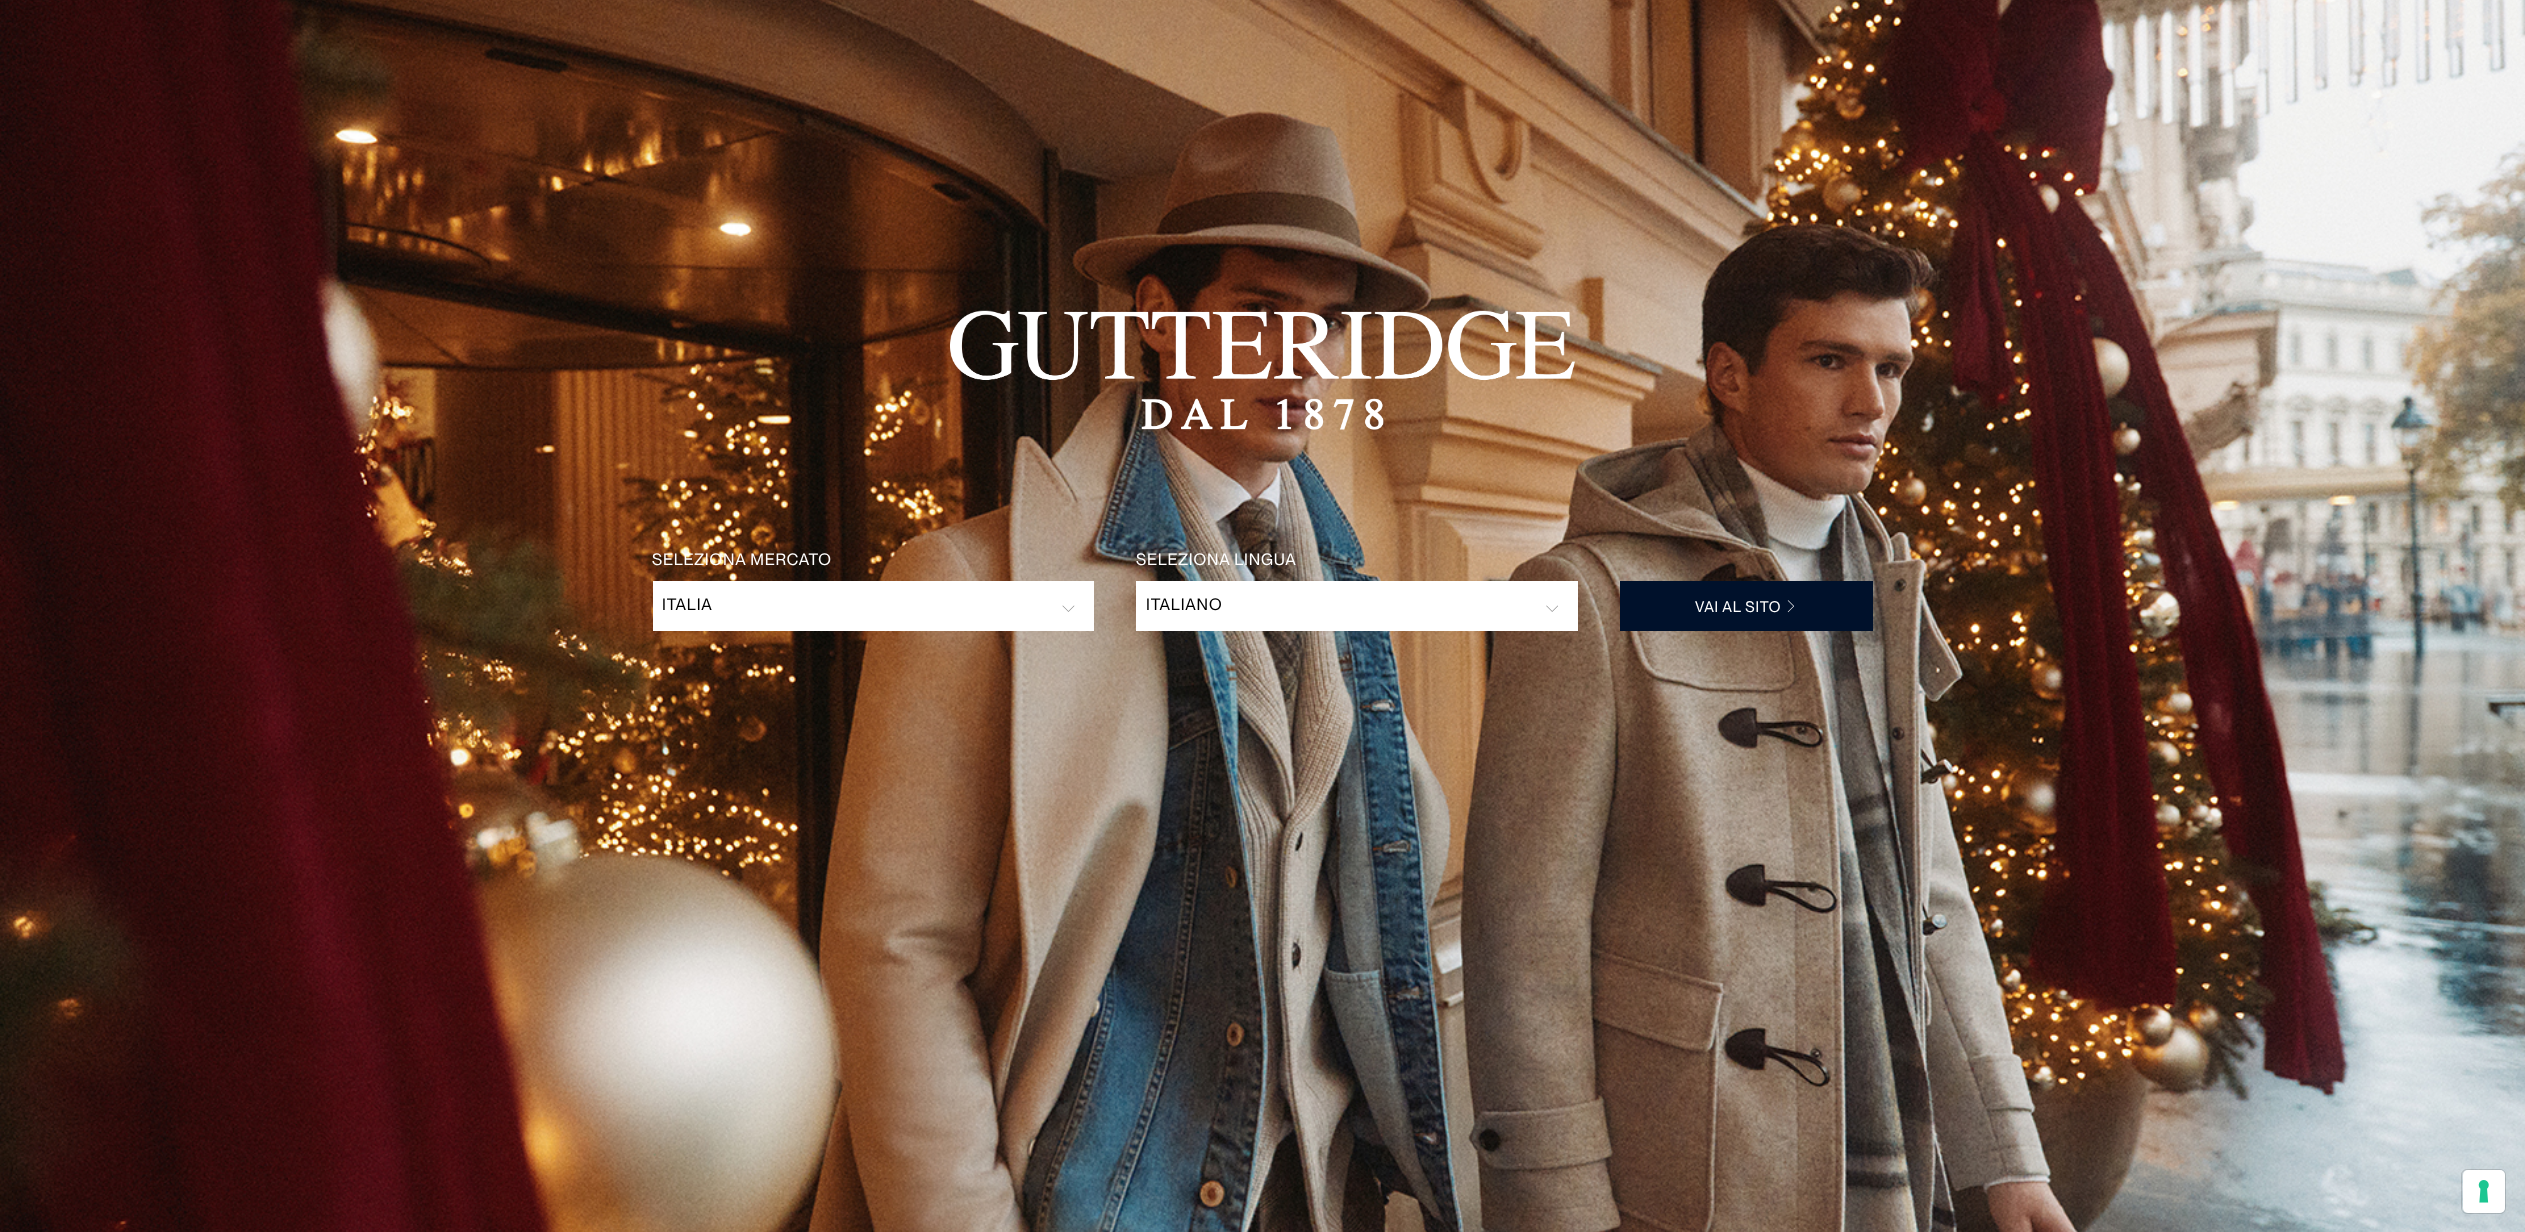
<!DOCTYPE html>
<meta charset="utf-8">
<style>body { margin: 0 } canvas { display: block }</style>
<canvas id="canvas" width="2525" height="1232"></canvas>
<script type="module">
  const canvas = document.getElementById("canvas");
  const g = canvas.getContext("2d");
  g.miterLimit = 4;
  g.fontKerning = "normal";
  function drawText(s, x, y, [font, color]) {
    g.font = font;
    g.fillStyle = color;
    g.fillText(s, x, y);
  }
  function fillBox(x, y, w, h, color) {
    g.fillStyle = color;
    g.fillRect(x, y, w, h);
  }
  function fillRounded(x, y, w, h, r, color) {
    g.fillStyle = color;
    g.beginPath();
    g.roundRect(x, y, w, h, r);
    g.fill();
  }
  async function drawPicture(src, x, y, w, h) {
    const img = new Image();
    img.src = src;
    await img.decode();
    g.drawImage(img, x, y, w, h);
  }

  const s1 = ["16.25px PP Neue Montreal", "#FFFFFF"];
  const s2 = ["16.25px PP Neue Montreal", "#000000"];
  const s3 = ["15px PP Neue Montreal", "#FFFFFF"];

  fillBox(0, 0, 2525, 1232, "#FFFFFF");
  await drawPicture("pic1.png", 0, 0, 2525, 1232);
  await drawPicture("pic2.png", 950, 310, 625, 120);
  g.letterSpacing = "0.8px";
  drawText("SELEZIONA MERCATO", 652, 565, s1);
  fillBox(653, 581, 441, 50, "#FFFFFF");
  drawText("ITALIA", 662, 610, s2);
  await drawPicture("pic3.png", 1062, 605, 13, 7);
  drawText("SELEZIONA LINGUA", 1136, 565, s1);
  fillBox(1136, 581, 442, 50, "#FFFFFF");
  drawText("ITALIANO", 1146, 610, s2);
  await drawPicture("pic4.png", 1546, 605, 12, 7);
  fillBox(1620, 581, 253, 50, "#00112B");
  g.letterSpacing = "0.75px";
  drawText("VAI AL SITO", 1695, 612, s3);
  await drawPicture("pic5.png", 1787, 600, 7, 13);
  g.beginPath();
  g.roundRect(2461.5, 1169.5, 44, 44, 5.5);
  g.strokeStyle = "rgba(0, 0, 0, 0.15)";
  g.stroke();
  fillRounded(2463, 1170, 42, 43, 5, "#FFFFFF");
  await drawPicture("pic6.png", 2478, 1180, 11, 23);
</script>
